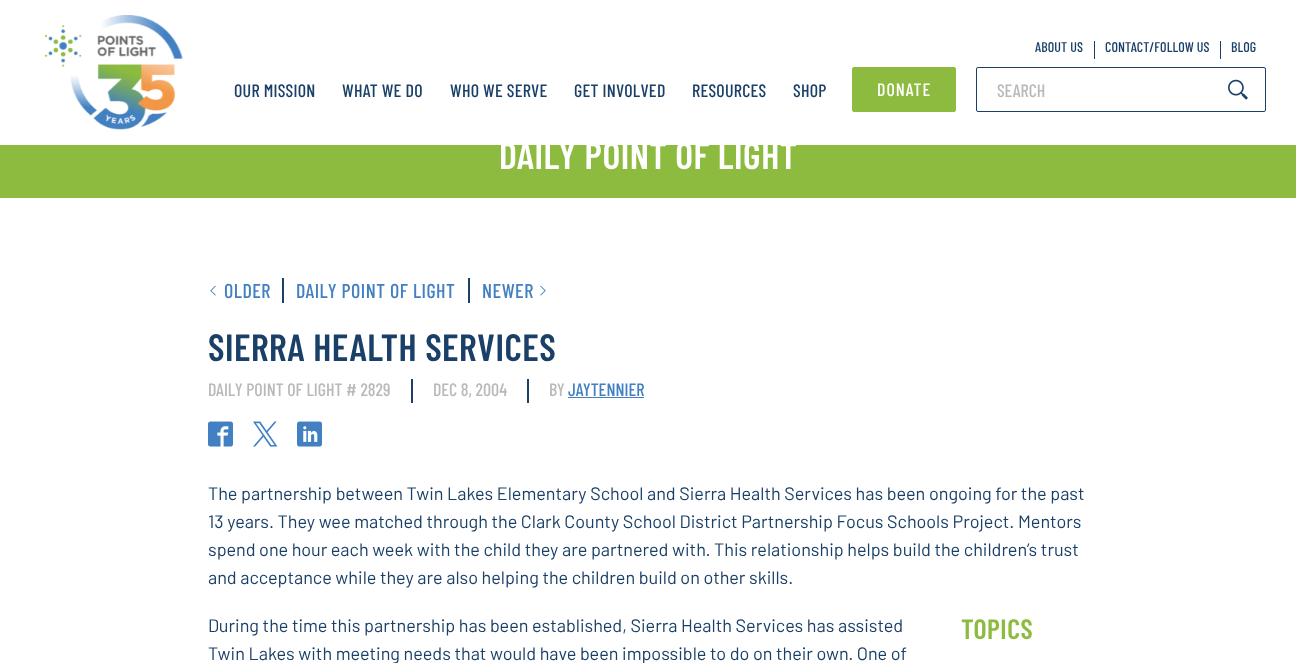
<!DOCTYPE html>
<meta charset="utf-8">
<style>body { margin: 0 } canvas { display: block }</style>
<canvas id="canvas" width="1296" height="663"></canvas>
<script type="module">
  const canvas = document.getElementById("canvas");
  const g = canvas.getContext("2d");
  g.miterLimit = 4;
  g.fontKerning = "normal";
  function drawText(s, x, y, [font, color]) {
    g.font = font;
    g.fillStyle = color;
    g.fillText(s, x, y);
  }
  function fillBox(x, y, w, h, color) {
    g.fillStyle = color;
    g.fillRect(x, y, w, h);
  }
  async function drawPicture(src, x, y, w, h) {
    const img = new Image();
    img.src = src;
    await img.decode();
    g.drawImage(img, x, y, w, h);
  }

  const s1 = ["500 14px Barlow Condensed", "#1A4068"];
  const s2 = ["500 18px Barlow Condensed", "#1A4068"];
  const s3 = ["500 18px Barlow Condensed", "#FFFFFF"];
  const s4 = ["500 18px Barlow Condensed", "#B9B9B9"];
  const s5 = ["600 38px Barlow Condensed", "#FFFFFF"];
  const s6 = ["500 20px Barlow Condensed", "#4280C2"];
  const s7 = ["600 38px Barlow Condensed", "#1A4068"];
  const s8 = ["500 18px Barlow Condensed", "#4280C2"];
  const s9 = ["18px Barlow", "#1A4068"];
  const s10 = ["600 28px Barlow Condensed", "#8CBB3F"];

  fillBox(0, 0, 1296, 663, "#FFFFFF");
  await drawPicture("pic1.png", 45, 15, 138, 115);
  g.letterSpacing = "0.1px";
  drawText("ABOUT US", 1035, 52, s1);
  fillBox(1094, 41, 1, 18, "#1A4068");
  drawText("CONTACT/FOLLOW US", 1105, 52, s1);
  fillBox(1220, 41, 1, 18, "#1A4068");
  drawText("BLOG", 1231, 52, s1);
  g.letterSpacing = "0.25px";
  drawText("OUR MISSION", 234, 97, s2);
  drawText("WHAT WE DO", 342, 97, s2);
  drawText("WHO WE SERVE", 450, 97, s2);
  drawText("GET INVOLVED", 574, 97, s2);
  drawText("RESOURCES", 692, 97, s2);
  drawText("SHOP", 793, 97, s2);
  g.fillStyle = "#8CBB3F";
  g.beginPath();
  g.roundRect(852.5, 67.5, 103, 44, 1.5);
  g.fill();
  g.strokeStyle = "#8CBB3F";
  g.stroke();
  g.letterSpacing = "1px";
  drawText("DONATE", 877, 96, s3);
  g.beginPath();
  g.roundRect(976.5, 67.5, 289, 44, 1.5);
  g.strokeStyle = "#1A4068";
  g.stroke();
  g.letterSpacing = "0px";
  drawText("SEARCH", 997, 97, s4);
  await drawPicture("pic2.png", 1228, 79, 20, 21);
  fillBox(0, 145, 1296, 53, "#8CBB3F");
  g.letterSpacing = "0.5px";
  drawText("DAILY POINT OF LIGHT", 499, 169, s5);
  fillBox(282, 278, 2, 25, "#1A4068");
  await drawPicture("pic3.png", 210, 285, 6, 11);
  drawText("OLDER", 224, 298, s6);
  drawText("DAILY POINT OF LIGHT", 296, 298, s6);
  fillBox(468, 278, 2, 25, "#1A4068");
  drawText("NEWER", 482, 298, s6);
  await drawPicture("pic4.png", 540, 285, 6, 11);
  drawText("SIERRA HEALTH SERVICES", 208, 361, s7);
  g.letterSpacing = "0px";
  drawText("DAILY POINT OF LIGHT # 2829", 208, 396, s4);
  fillBox(411, 379, 2, 24, "#1A4068");
  drawText("DEC 8, 2004", 433, 396, s4);
  fillBox(527, 379, 2, 24, "#1A4068");
  drawText("BY", 549, 396, s4);
  drawText("JAYTENNIER", 568, 396, s8);
  fillBox(568, 397, 76, 1, "#4280C2");
  await drawPicture("pic5.png", 208, 421, 25, 26);
  await drawPicture("pic6.png", 253, 421, 25, 26);
  await drawPicture("pic7.png", 297, 421, 25, 26);
  drawText("The partnership between Twin Lakes Elementary School and Sierra Health Services has been ongoing for the past", 208, 500, s9);
  drawText("13 years. They wee matched through the Clark County School District Partnership Focus Schools Project. Mentors", 208, 528, s9);
  drawText("spend one hour each week with the child they are partnered with. This relationship helps build the children’s trust", 208, 556, s9);
  drawText("and acceptance while they are also helping the children build on other skills.", 208, 584, s9);
  drawText("During the time this partnership has been established, Sierra Health Services has assisted", 208, 632, s9);
  drawText("Twin Lakes with meeting needs that would have been impossible to do on their own. One of", 208, 660, s9);
  g.letterSpacing = "0.5px";
  drawText("TOPICS", 961, 639, s10);
</script>
